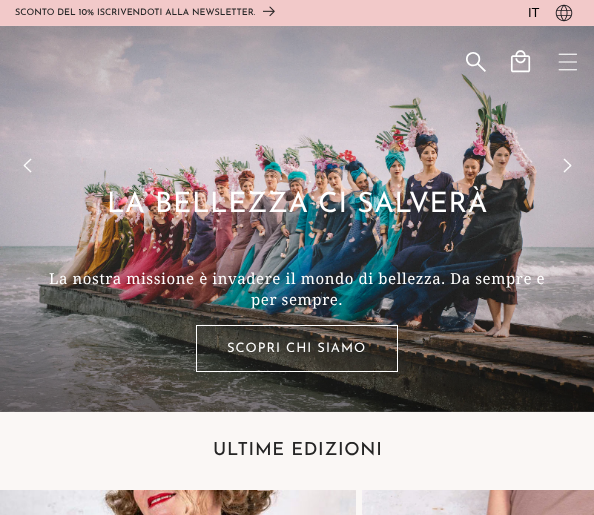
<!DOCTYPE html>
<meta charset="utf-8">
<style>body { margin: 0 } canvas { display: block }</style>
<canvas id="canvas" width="594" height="515"></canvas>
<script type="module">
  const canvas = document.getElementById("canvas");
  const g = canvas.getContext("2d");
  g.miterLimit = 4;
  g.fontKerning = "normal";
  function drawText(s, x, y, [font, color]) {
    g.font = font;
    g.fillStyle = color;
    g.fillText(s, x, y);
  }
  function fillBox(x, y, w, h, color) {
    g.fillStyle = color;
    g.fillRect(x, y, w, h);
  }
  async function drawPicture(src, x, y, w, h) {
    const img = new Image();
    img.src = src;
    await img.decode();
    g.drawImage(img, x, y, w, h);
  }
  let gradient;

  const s1 = ["500 9px Josefin Sans", "#252525"];
  const s2 = ["13px Liberation Sans", "#000000"];
  const s3 = ["28px Josefin Sans", "#FFFFFF"];
  const s4 = ["15px Noto Serif", "#FFFFFF"];
  const s5 = ["13px Josefin Sans", "#FFFFFF"];
  const s6 = ["500 18px Josefin Sans", "#252525"];

  fillBox(0, 0, 594, 515, "#FAF7F5");
  fillBox(0, 0, 594, 25, "#F2C9C9");
  fillBox(0, 25, 594, 1, "#F2CCCC");
  drawText("SCONTO DEL 10% ISCRIVENDOTI ALLA NEWSLETTER.", 15, 15, s1);
  await drawPicture("pic1.png", 263, 6, 12, 11);
  drawText("IT", 528, 17, s2);
  await drawPicture("pic2.png", 555, 4, 18, 18);
  await drawPicture("pic8.png", 0, 26, 594, 386);
  gradient = g.createLinearGradient(297, 26, 297, 412);
  gradient.addColorStop(0, "rgba(0, 0, 0, 0.2)");
  gradient.addColorStop(0.33, "rgba(0, 0, 0, 0)");
  g.fillStyle = gradient;
  g.fillRect(0, 26, 594, 114);
  await drawPicture("pic3.png", 466, 52, 20, 20);
  await drawPicture("pic4.png", 510, 50, 21, 23);
  await drawPicture("pic5.png", 558, 53, 19, 18);
  await drawPicture("pic6.png", 23, 158, 9, 15);
  await drawPicture("pic7.png", 563, 158, 9, 15);
  gradient = g.createLinearGradient(297, 412, 297, 26);
  gradient.addColorStop(0, "rgba(0, 0, 0, 0.4)");
  gradient.addColorStop(0.43, "rgba(0, 0, 0, 0)");
  g.fillStyle = gradient;
  g.fillRect(0, 255, 594, 157);
  g.letterSpacing = "0.7px";
  drawText("LA BELLEZZA CI SALVERÀ", 107, 212, s3);
  g.letterSpacing = "0.6px";
  drawText("La nostra missione è invadere il mondo di bellezza. Da sempre e", 49, 284, s4);
  drawText("per sempre.", 251, 305, s4);
  g.strokeStyle = "#FFFFFF";
  g.strokeRect(196.5, 325.5, 201, 46);
  g.letterSpacing = "1px";
  drawText("SCOPRI CHI SIAMO", 227, 352, s5);
  g.save();
  g.beginPath();
  g.rect(0, 442, 594, 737);
  g.clip();
  g.letterSpacing = "0.7px";
  drawText("ULTIME EDIZIONI", 213, 455, s6);
  g.restore();
  await drawPicture("pic9.png", 0, 490, 356, 25);
  await drawPicture("pic10.png", 362, 490, 232, 25);
</script>
